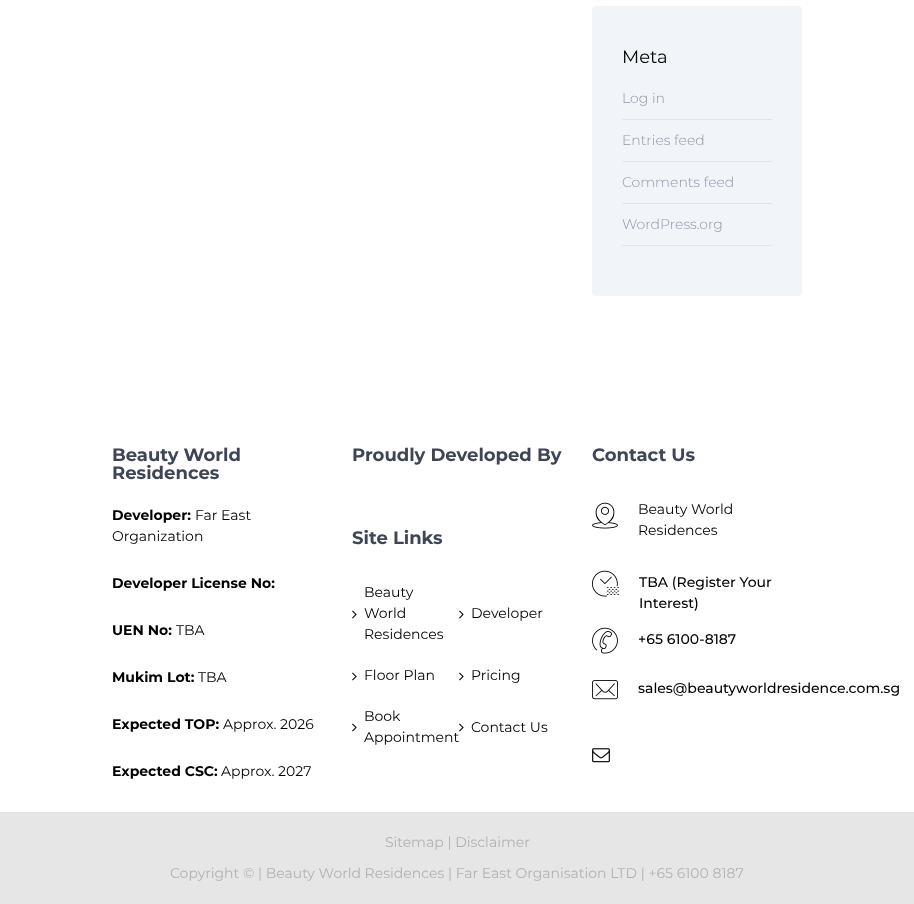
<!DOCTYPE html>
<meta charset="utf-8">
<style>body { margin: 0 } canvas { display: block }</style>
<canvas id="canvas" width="914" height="904"></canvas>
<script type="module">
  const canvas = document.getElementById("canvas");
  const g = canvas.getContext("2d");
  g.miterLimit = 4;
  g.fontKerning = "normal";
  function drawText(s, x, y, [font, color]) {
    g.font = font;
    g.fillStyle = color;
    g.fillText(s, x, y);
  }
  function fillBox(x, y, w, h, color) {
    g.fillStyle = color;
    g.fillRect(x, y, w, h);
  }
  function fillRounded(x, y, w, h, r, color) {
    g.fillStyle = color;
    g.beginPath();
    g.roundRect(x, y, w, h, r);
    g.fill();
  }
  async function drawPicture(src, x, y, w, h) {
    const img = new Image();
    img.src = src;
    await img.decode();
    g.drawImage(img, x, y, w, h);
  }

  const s1 = ["18px Montserrat", "#000000"];
  const s2 = ["300 14px Montserrat", "#8D97AD"];
  const s3 = ["bold 18px Montserrat", "#3E4555"];
  const s4 = ["bold 14px Montserrat", "#000000"];
  const s5 = ["14px Montserrat", "#000000"];
  const s6 = ["500 14px Montserrat", "#000000"];
  const s7 = ["14px Montserrat", "#B3B2B2"];

  fillBox(0, 0, 914, 904, "#FFFFFF");
  fillRounded(592, 6, 210, 290, 4, "#F1F4F8");
  drawText("Meta", 622, 63, s1);
  fillBox(622, 119, 150, 1, "#E1E5EB");
  drawText("Log in", 622, 103, s2);
  fillBox(622, 161, 150, 1, "#E1E5EB");
  drawText("Entries feed", 622, 145, s2);
  fillBox(622, 203, 150, 1, "#E1E5EB");
  drawText("Comments feed", 622, 187, s2);
  fillBox(622, 245, 150, 1, "#E1E5EB");
  drawText("WordPress.org", 622, 229, s2);
  drawText("Beauty World", 112, 461, s3);
  drawText("Residences", 112, 479, s3);
  drawText("Developer:", 112, 520, s4);
  drawText("Far East", 195, 520, s5);
  drawText("Organization", 112, 541, s5);
  drawText("Developer License No:", 112, 588, s4);
  drawText("UEN No:", 112, 635, s4);
  drawText("TBA", 176, 635, s5);
  drawText("Mukim Lot:", 112, 682, s4);
  drawText("TBA", 198, 682, s5);
  drawText("Expected TOP:", 112, 729, s4);
  drawText("Approx. 2026", 223, 729, s5);
  drawText("Expected CSC:", 112, 776, s4);
  drawText("Approx. 2027", 221, 776, s5);
  drawText("Proudly Developed By", 352, 461, s3);
  drawText("Site Links", 352, 544, s3);
  drawText("Beauty", 364, 597, s5);
  await drawPicture("pic1.png", 352, 610, 5, 9);
  drawText("World", 364, 618, s5);
  drawText("Residences", 364, 639, s5);
  await drawPicture("pic1.png", 459, 610, 5, 9);
  drawText("Developer", 471, 618, s5);
  await drawPicture("pic1.png", 352, 672, 5, 9);
  drawText("Floor Plan", 364, 680, s5);
  await drawPicture("pic1.png", 459, 672, 5, 9);
  drawText("Pricing", 471, 680, s5);
  drawText("Book", 364, 721, s5);
  await drawPicture("pic1.png", 352, 723, 5, 9);
  drawText("Appointment", 364, 742, s5);
  await drawPicture("pic1.png", 459, 723, 5, 9);
  drawText("Contact Us", 471, 732, s5);
  drawText("Contact Us", 592, 461, s3);
  await drawPicture("pic2.png", 592, 502, 26, 27);
  drawText("Beauty World", 638, 514, s5);
  drawText("Residences", 638, 535, s5);
  await drawPicture("pic3.png", 592, 570, 27, 27);
  drawText("TBA (Register Your", 639, 587, s6);
  drawText("Interest)", 639, 608, s6);
  await drawPicture("pic4.png", 592, 627, 26, 27);
  drawText("+65 6100-8187", 638, 644, s6);
  await drawPicture("pic5.png", 592, 680, 26, 20);
  drawText("sales@beautyworldresidence.com.sg", 638, 693, s6);
  await drawPicture("pic6.png", 592, 748, 18, 15);
  fillBox(0, 812, 914, 92, "#E6E6E6");
  drawText("Sitemap | Disclaimer", 385, 847, s7);
  drawText("Copyright © | Beauty World Residences | Far East Organisation LTD | +65 6100 8187", 170, 878, s7);
</script>
